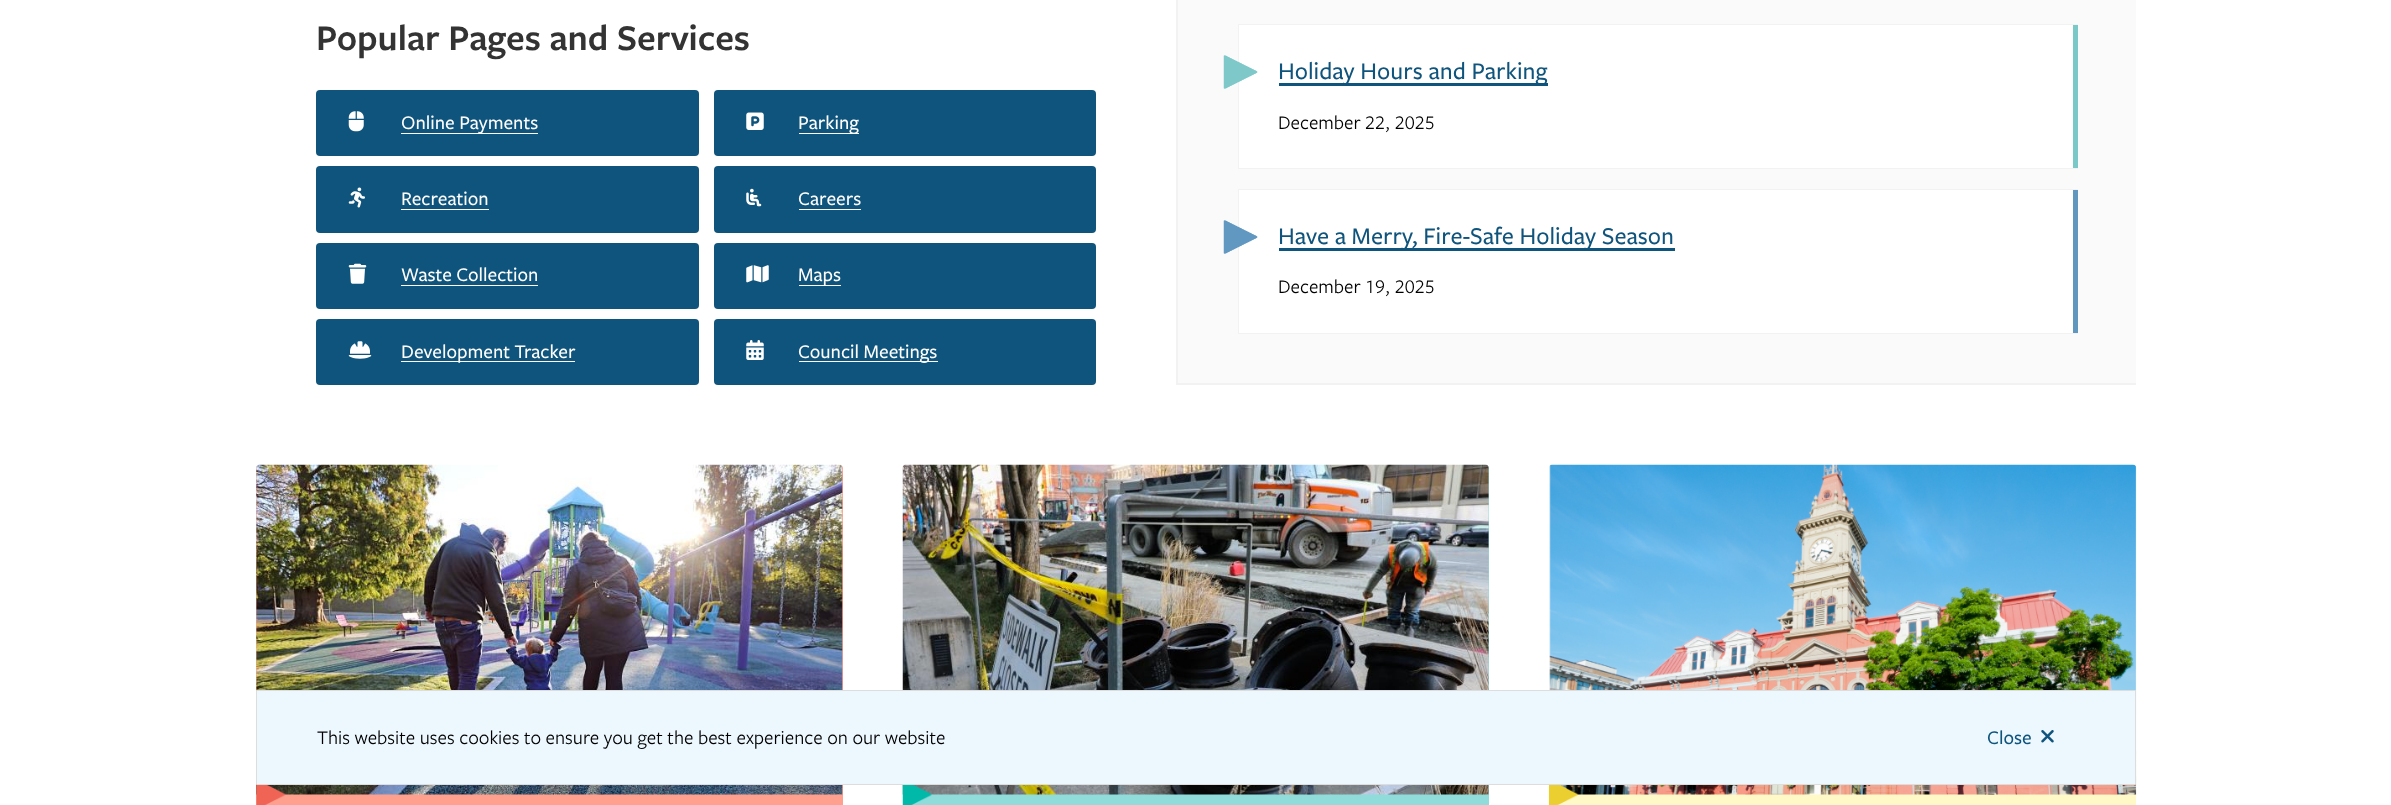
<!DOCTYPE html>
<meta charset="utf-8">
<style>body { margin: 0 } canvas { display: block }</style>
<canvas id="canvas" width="2391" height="805"></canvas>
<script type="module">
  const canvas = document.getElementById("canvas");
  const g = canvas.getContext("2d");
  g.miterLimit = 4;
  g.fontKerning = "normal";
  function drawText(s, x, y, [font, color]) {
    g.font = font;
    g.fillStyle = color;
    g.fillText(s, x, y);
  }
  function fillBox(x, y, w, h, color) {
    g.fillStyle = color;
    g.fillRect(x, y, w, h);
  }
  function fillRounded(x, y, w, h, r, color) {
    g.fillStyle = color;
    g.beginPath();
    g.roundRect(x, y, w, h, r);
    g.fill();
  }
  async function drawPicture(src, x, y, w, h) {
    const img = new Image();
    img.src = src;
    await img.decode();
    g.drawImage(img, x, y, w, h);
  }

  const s1 = ["600 37.5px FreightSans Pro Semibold", "#333333"];
  const s2 = ["500 20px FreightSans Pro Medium", "#FFFFFF"];
  const s3 = ["500 25px FreightSans Pro Medium", "#0F547C"];
  const s4 = ["20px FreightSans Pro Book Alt", "#000000"];
  const s5 = ["20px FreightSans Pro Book", "#000000"];
  const s6 = ["500 20px FreightSans Pro Medium", "#0F547C"];

  fillBox(0, 0, 2391, 805, "#FFFFFF");
  drawText("Popular Pages and Services", 316, 50, s1);
  fillRounded(316, 90, 383, 66, 4, "#0F547C");
  await drawPicture("pic1.png", 348, 111, 16, 21);
  fillBox(401, 133, 137, 1, "#FFFFFF");
  drawText("Online Payments", 401, 129, s2);
  fillRounded(714, 90, 382, 66, 4, "#0F547C");
  await drawPicture("pic2.png", 746, 112, 18, 18);
  fillBox(799, 133, 60, 1, "#FFFFFF");
  drawText("Parking", 798, 129, s2);
  fillRounded(316, 166, 383, 67, 4, "#0F547C");
  await drawPicture("pic3.png", 348, 187, 17, 21);
  drawText("Recreation", 401, 205, s2);
  fillBox(401, 209, 88, 1, "#FFFFFF");
  fillRounded(714, 166, 382, 67, 4, "#0F547C");
  await drawPicture("pic4.png", 746, 188, 16, 19);
  drawText("Careers", 798, 205, s2);
  fillBox(799, 209, 62, 1, "#FFFFFF");
  fillRounded(316, 243, 383, 66, 4, "#0F547C");
  await drawPicture("pic5.png", 348, 263, 19, 21);
  drawText("Waste Collection", 401, 281, s2);
  fillBox(401, 285, 137, 1, "#FFFFFF");
  fillRounded(714, 243, 382, 66, 4, "#0F547C");
  await drawPicture("pic6.png", 746, 265, 23, 18);
  fillBox(799, 285, 42, 1, "#FFFFFF");
  drawText("Maps", 798, 281, s2);
  fillRounded(316, 319, 383, 66, 4, "#0F547C");
  await drawPicture("pic7.png", 348, 341, 24, 18);
  fillBox(401, 361, 174, 1, "#FFFFFF");
  drawText("Development Tracker", 401, 358, s2);
  fillRounded(714, 319, 382, 66, 4, "#0F547C");
  await drawPicture("pic8.png", 746, 340, 18, 20);
  fillBox(799, 361, 139, 1, "#FFFFFF");
  drawText("Council Meetings", 798, 358, s2);
  g.fillStyle = "#F2F2F2";
  g.beginPath();
  g.moveTo(1216, -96);
  g.lineTo(1176, -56);
  g.lineTo(1176, 385);
  g.lineTo(2136, 385);
  g.lineTo(2136, -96);
  g.closePath();
  g.fill();
  g.fillStyle = "#FAFAFA";
  g.beginPath();
  g.moveTo(1217, -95);
  g.lineTo(1178, -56);
  g.lineTo(1178, 383);
  g.lineTo(2136, 383);
  g.lineTo(2136, -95);
  g.closePath();
  g.fill();
  fillBox(1239, 25, 834, 143, "#FFFFFF");
  fillBox(1238, 24, 840, 1, "#F2F2F2");
  fillBox(1238, 168, 840, 1, "#F2F2F2");
  fillBox(1238, 24, 1, 145, "#F2F2F2");
  await drawPicture("pic9.png", 1223, 55, 35, 34);
  fillBox(1279, 83, 269, 3, "#0F547C");
  drawText("Holiday Hours and Parking", 1278, 79, s3);
  fillBox(2073, 25, 5, 143, "#7BC8C9");
  drawText("December 22, 2025", 1278, 129, s4);
  fillBox(1239, 190, 834, 143, "#FFFFFF");
  fillBox(1238, 189, 840, 1, "#F2F2F2");
  fillBox(1238, 333, 840, 1, "#F2F2F2");
  fillBox(1238, 189, 1, 145, "#F2F2F2");
  await drawPicture("pic10.png", 1223, 220, 35, 34);
  fillBox(1279, 248, 396, 3, "#0F547C");
  drawText("Have a Merry, Fire-Safe Holiday Season", 1278, 244, s3);
  fillBox(2073, 190, 5, 143, "#6097BF");
  drawText("December 19, 2025", 1278, 293, s4);
  fillRounded(256, 465, 587, 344, 4, "#FFA08F");
  await drawPicture("pic11.png", 256, 464, 587, 331);
  await drawPicture("pic12.png", 256, 785, 30, 20);
  fillRounded(903, 465, 586, 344, 4, "#8FDCDA");
  await drawPicture("pic13.png", 902, 464, 587, 331);
  await drawPicture("pic14.png", 902, 785, 30, 20);
  fillRounded(1549, 465, 587, 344, 4, "#FFF8C7");
  await drawPicture("pic15.png", 1549, 464, 588, 331);
  await drawPicture("pic16.png", 1548, 785, 30, 20);
  g.fillStyle = "#ECF7FE";
  g.beginPath();
  g.rect(256.5, 690.5, 1879, 94);
  g.fill();
  g.strokeStyle = "#DDDDDD";
  g.stroke();
  drawText("This website uses cookies to ensure you get the best experience on our website", 317, 744, s5);
  drawText("Close", 1987, 744, s6);
  await drawPicture("pic17.png", 2041, 730, 13, 13);
</script>
